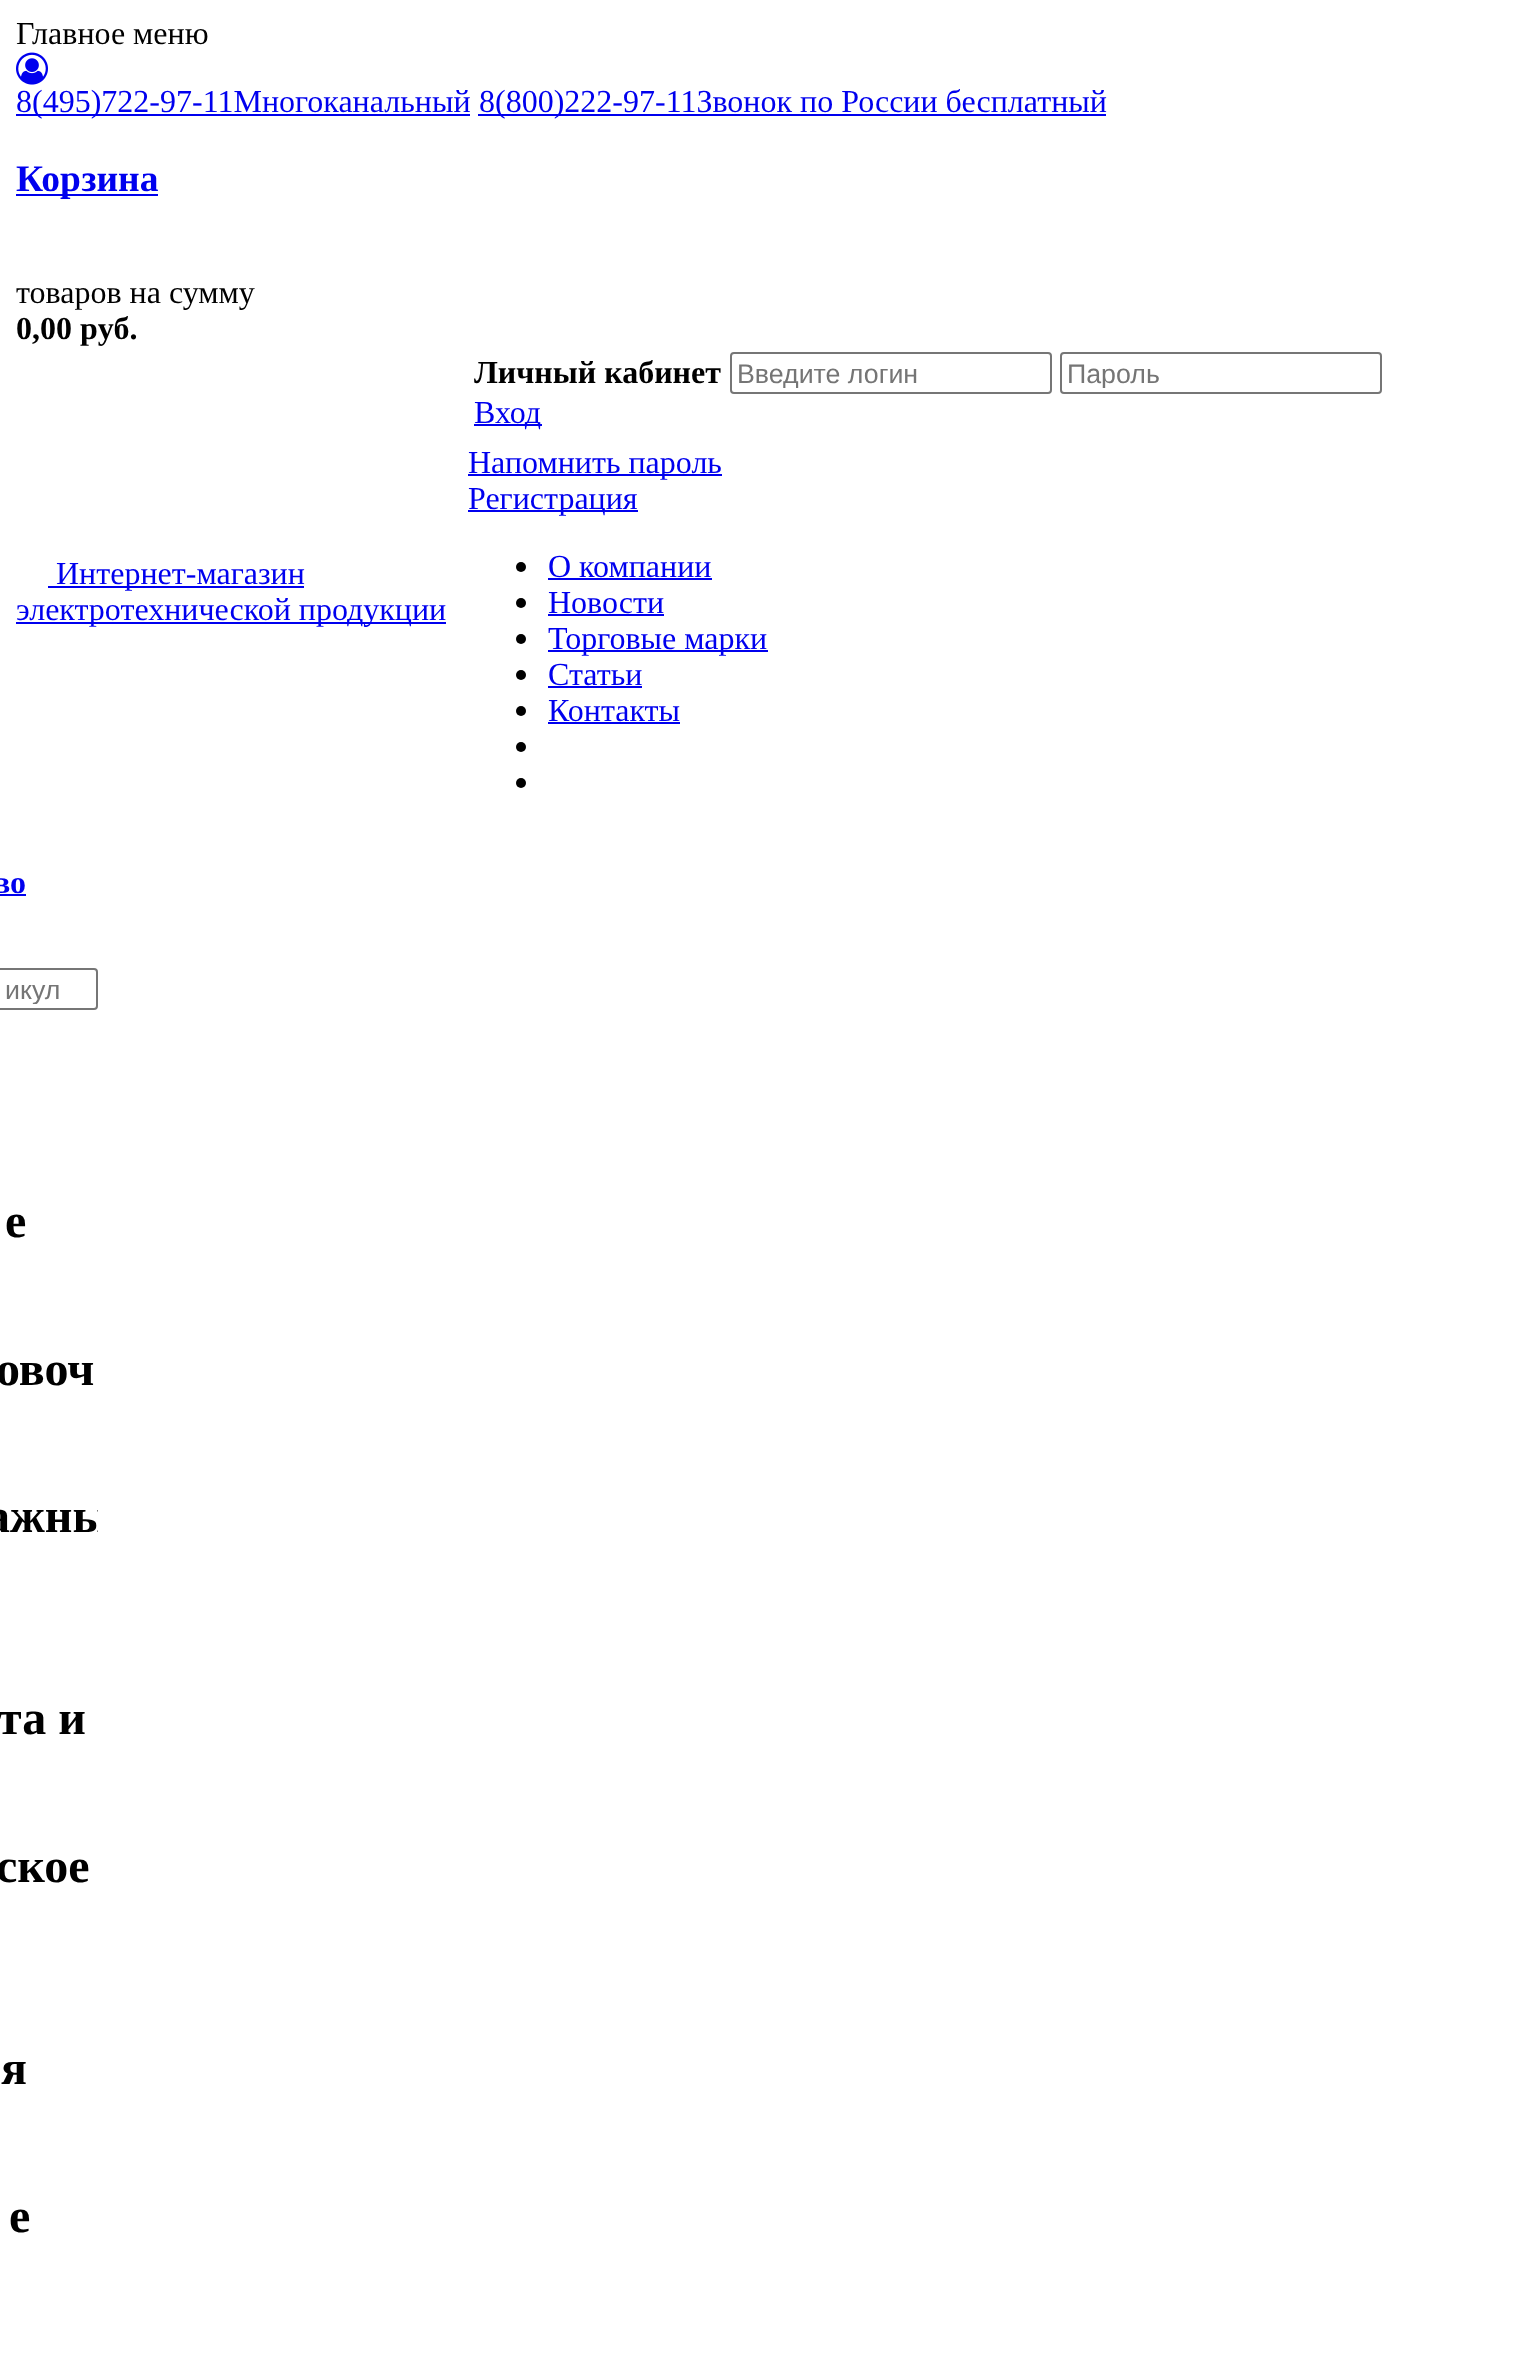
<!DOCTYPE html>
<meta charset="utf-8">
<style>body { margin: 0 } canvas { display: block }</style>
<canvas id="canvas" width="1530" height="2354"></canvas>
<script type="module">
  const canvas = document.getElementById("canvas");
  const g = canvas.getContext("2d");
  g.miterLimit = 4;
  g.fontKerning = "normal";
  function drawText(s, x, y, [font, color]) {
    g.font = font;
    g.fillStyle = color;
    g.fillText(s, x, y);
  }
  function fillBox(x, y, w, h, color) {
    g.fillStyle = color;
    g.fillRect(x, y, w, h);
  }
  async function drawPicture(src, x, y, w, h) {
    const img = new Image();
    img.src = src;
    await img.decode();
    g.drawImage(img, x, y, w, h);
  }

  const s1 = ["32px Liberation Serif", "#000000"];
  const s2 = ["32px Liberation Serif", "#0000EE"];
  const s3 = ["bold 37.5px Liberation Serif", "#0000EE"];
  const s4 = ["bold 32px Liberation Serif", "#000000"];
  const s5 = ["26.75px Liberation Sans", "#757575"];
  const s6 = ["bold 32px Liberation Serif", "#0000EE"];
  const s7 = ["bold 48px Liberation Serif", "#000000"];

  fillBox(0, 0, 1530, 2354, "#FFFFFF");
  drawText("Главное меню", 16, 44, s1);
  await drawPicture("pic1.png", 16, 52, 32, 33);
  fillBox(16, 114, 454, 2, "#0000EE");
  drawText("8(495)722-97-11Многоканальный", 16, 112, s2);
  fillBox(478, 114, 628, 2, "#0000EE");
  drawText("8(800)222-97-11Звонок по России бесплатный", 479, 112, s2);
  fillBox(16, 194, 142, 2, "#0000EE");
  drawText("Корзина", 16, 191, s3);
  drawText("товаров на сумму", 16, 303, s1);
  drawText("0,00 pуб.", 16, 339, s4);
  drawText("Личный кабинет", 474, 383, s4);
  g.beginPath();
  g.roundRect(731, 353, 320, 40, 3);
  g.strokeStyle = "#767676";
  g.lineWidth = 2;
  g.stroke();
  g.save();
  g.beginPath();
  g.rect(738, 358, 306, 30);
  g.clip();
  drawText("Введите логин", 737, 383, s5);
  g.restore();
  g.beginPath();
  g.roundRect(1061, 353, 320, 40, 3);
  g.stroke();
  g.save();
  g.beginPath();
  g.rect(1068, 358, 306, 30);
  g.clip();
  drawText("Пароль", 1067, 383, s5);
  g.restore();
  fillBox(474, 424, 68, 2, "#0000EE");
  drawText("Вход", 474, 423, s2);
  fillBox(468, 474, 254, 2, "#0000EE");
  drawText("Напомнить пароль", 468, 473, s2);
  fillBox(468, 510, 170, 2, "#0000EE");
  drawText("Регистрация", 468, 509, s2);
  fillBox(48, 586, 256, 2, "#0000EE");
  drawText("Интернет-магазин", 56, 584, s2);
  fillBox(16, 622, 430, 2, "#0000EE");
  drawText("электротехнической продукции", 16, 620, s2);
  g.fillStyle = "#000000";
  g.beginPath();
  g.arc(521, 567, 5, 0, Math.PI * 2);
  g.fill();
  drawText("О компании", 548, 577, s2);
  fillBox(548, 578, 164, 2, "#0000EE");
  g.fillStyle = "#000000";
  g.beginPath();
  g.arc(521, 603, 5, 0, Math.PI * 2);
  g.fill();
  drawText("Новости", 548, 613, s2);
  fillBox(548, 614, 116, 2, "#0000EE");
  g.fillStyle = "#000000";
  g.beginPath();
  g.arc(521, 639, 5, 0, Math.PI * 2);
  g.fill();
  fillBox(548, 650, 220, 2, "#0000EE");
  drawText("Торговые марки", 548, 649, s2);
  g.fillStyle = "#000000";
  g.beginPath();
  g.arc(521, 675, 5, 0, Math.PI * 2);
  g.fill();
  drawText("Статьи", 548, 685, s2);
  fillBox(548, 686, 94, 2, "#0000EE");
  g.fillStyle = "#000000";
  g.beginPath();
  g.arc(521, 711, 5, 0, Math.PI * 2);
  g.fill();
  drawText("Контакты", 548, 721, s2);
  fillBox(548, 722, 132, 2, "#0000EE");
  g.fillStyle = "#000000";
  g.beginPath();
  g.arc(521, 747, 5, 0, Math.PI * 2);
  g.fill();
  g.beginPath();
  g.arc(521, 783, 5, 0, Math.PI * 2);
  g.fill();
  drawText("во", -7, 893, s6);
  fillBox(0, 894, 26, 2, "#0000EE");
  g.beginPath();
  g.roundRect(-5, 969, 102, 40, 3);
  g.stroke();
  g.save();
  g.beginPath();
  g.rect(0, 974, 90, 30);
  g.clip();
  drawText("икул", 5, 999, s5);
  g.restore();
  drawText("е", 5, 1237, s7);
  drawText("овоч", -4, 1385, s7);
  g.save();
  g.beginPath();
  g.rect(0, 864, 98, 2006);
  g.clip();
  drawText("ажны", -14, 1532, s7);
  g.restore();
  drawText("та и", -2, 1734, s7);
  drawText("ское", -4, 1882, s7);
  drawText("я", 1, 2084, s7);
  drawText("е", 9, 2232, s7);
</script>
